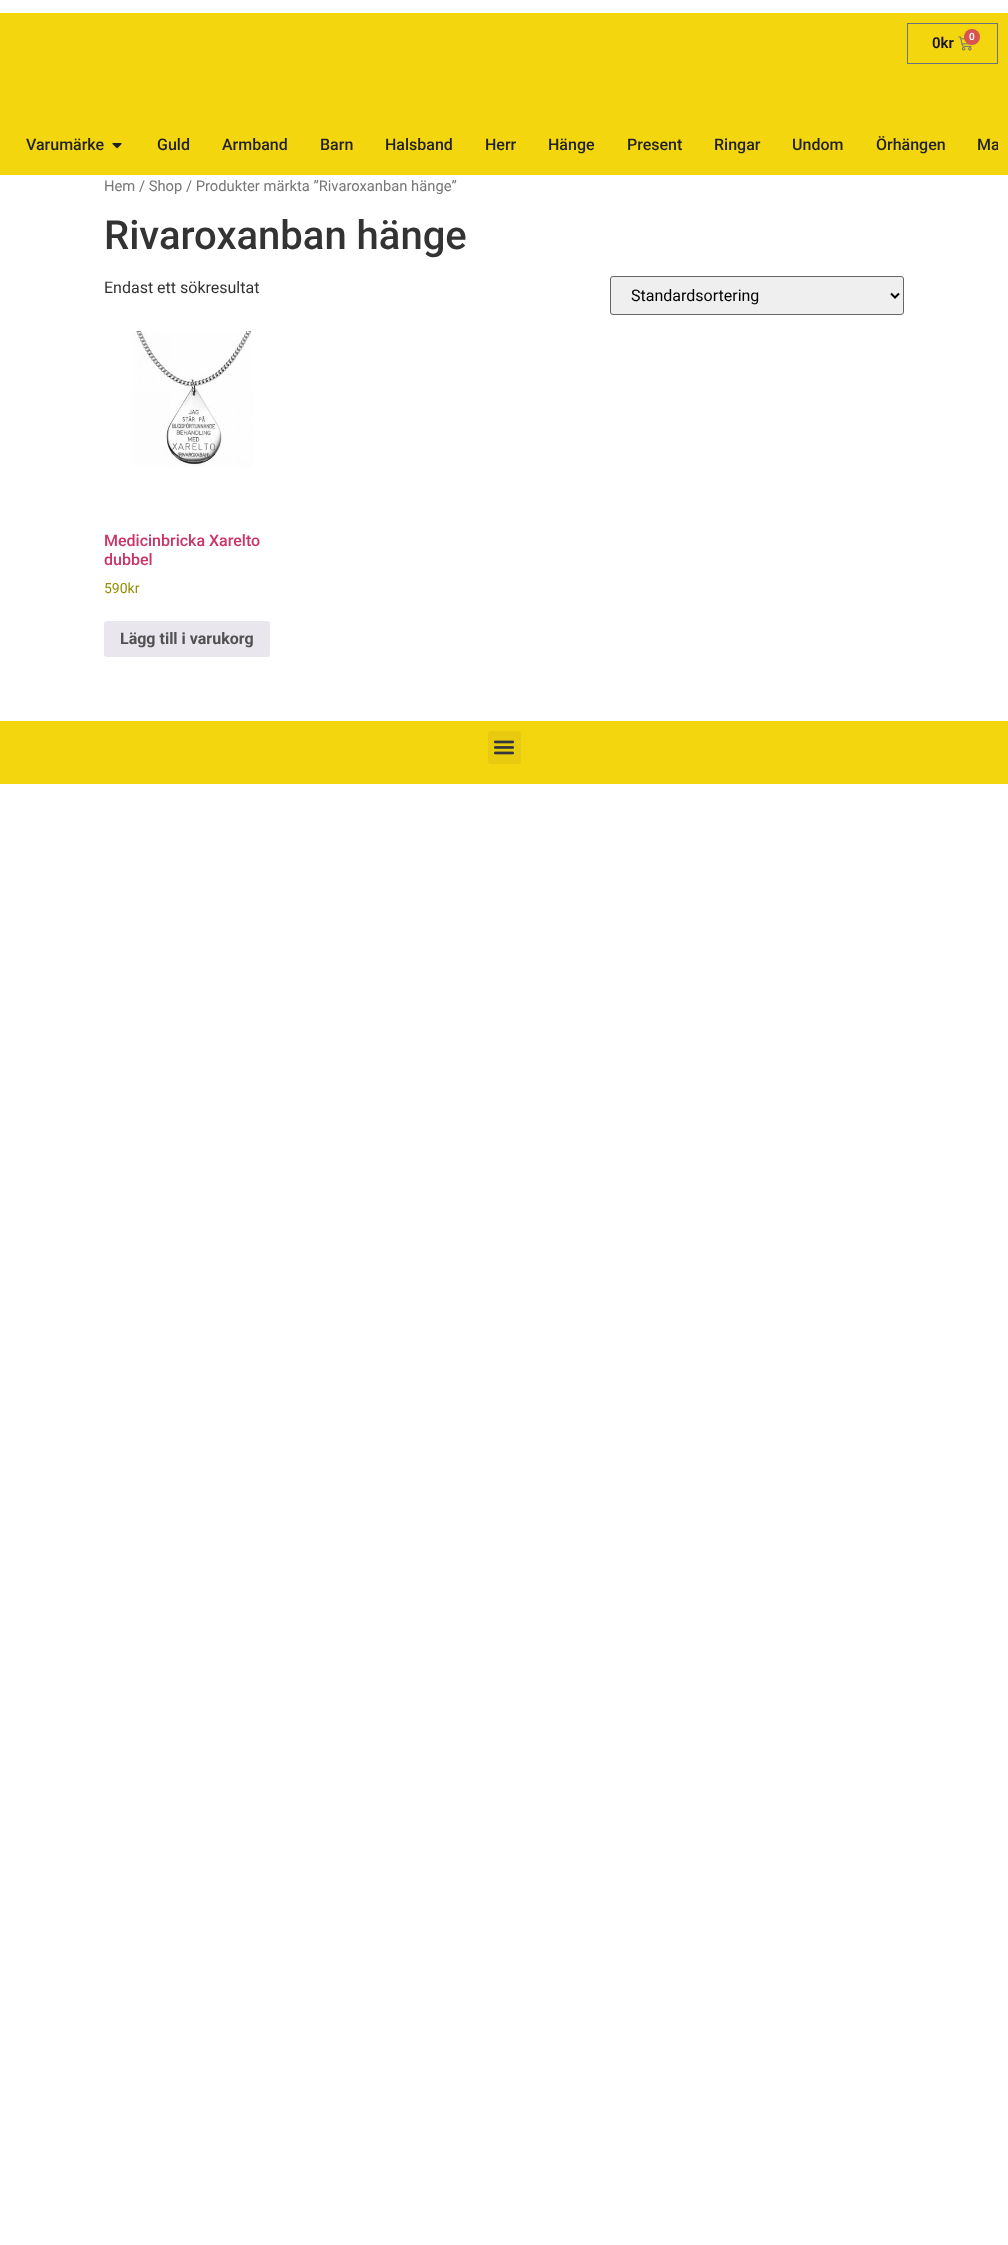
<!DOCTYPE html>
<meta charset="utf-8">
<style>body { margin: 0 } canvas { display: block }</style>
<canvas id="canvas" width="1008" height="2245"></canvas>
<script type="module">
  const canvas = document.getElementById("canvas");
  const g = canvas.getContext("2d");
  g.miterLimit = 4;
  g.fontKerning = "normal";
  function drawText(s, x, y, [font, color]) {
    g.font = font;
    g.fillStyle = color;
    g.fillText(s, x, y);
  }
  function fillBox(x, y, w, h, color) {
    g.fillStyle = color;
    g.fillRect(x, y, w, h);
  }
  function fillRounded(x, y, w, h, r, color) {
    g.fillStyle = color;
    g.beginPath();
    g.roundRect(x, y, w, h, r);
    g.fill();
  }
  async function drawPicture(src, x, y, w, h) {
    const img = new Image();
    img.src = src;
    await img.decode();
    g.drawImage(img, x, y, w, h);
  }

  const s1 = ["600 15px Roboto", "#171515"];
  const s2 = ["600 10px Roboto", "#FFFFFF"];
  const s3 = ["500 16px Roboto", "#1F2124"];
  const s4 = ["14.75px Roboto", "#767676"];
  const s5 = ["500 40px Roboto", "#333333"];
  const s6 = ["16px Roboto", "#333333"];
  const s7 = ["16px Roboto", "#000000"];
  const s8 = ["500 16px Roboto", "#CC3366"];
  const s9 = ["14px Roboto", "#958E09"];
  const s10 = ["bold 16px Roboto", "#515151"];

  fillBox(0, 0, 1008, 2245, "#FFFFFF");
  fillBox(0, 13, 1008, 162, "#F4D60F");
  g.strokeStyle = "#69727D";
  g.strokeRect(907.5, 23.5, 90, 40);
  drawText("0kr", 932, 48, s1);
  await drawPicture("pic1.png", 958, 36, 14, 15);
  g.fillStyle = "#D9534F";
  g.beginPath();
  g.arc(972, 37, 8, 0, Math.PI * 2);
  g.fill();
  drawText("0", 969, 40, s2);
  drawText("Varumärke", 26, 150, s3);
  await drawPicture("pic2.png", 112, 143, 10, 6);
  drawText("Guld", 157, 150, s3);
  drawText("Armband", 222, 150, s3);
  drawText("Barn", 320, 150, s3);
  drawText("Halsband", 385, 150, s3);
  drawText("Herr", 485, 150, s3);
  drawText("Hänge", 548, 150, s3);
  drawText("Present", 627, 150, s3);
  drawText("Ringar", 714, 150, s3);
  drawText("Undom", 792, 150, s3);
  drawText("Örhängen", 876, 150, s3);
  g.save();
  g.beginPath();
  g.rect(10, 125, 988, 40);
  g.clip();
  drawText("Ma", 977, 150, s3);
  g.restore();
  drawText("Hem / Shop / Produkter märkta ”Rivaroxanban hänge”", 104, 191, s4);
  drawText("Rivaroxanban hänge", 104, 249, s5);
  drawText("Endast ett sökresultat", 104, 293, s6);
  g.fillStyle = "#EFEFEF";
  g.beginPath();
  g.roundRect(610.5, 276.5, 293, 38, 2.5);
  g.fill();
  g.strokeStyle = "#666666";
  g.stroke();
  g.beginPath();
  g.moveTo(891, 293.5);
  g.lineTo(895, 297.5);
  g.lineTo(899, 293.5);
  g.strokeStyle = "#000000";
  g.lineWidth = 2;
  g.stroke();
  drawText("Standardsortering", 631, 301, s7);
  await drawPicture("pic3.png", 132, 331, 121, 136);
  drawText("Medicinbricka Xarelto", 104, 546, s8);
  drawText("dubbel", 104, 565, s8);
  drawText("590kr", 104, 593, s9);
  fillRounded(104, 621, 166, 36, 3, "#E9E6ED");
  drawText("Lägg till i varukorg", 120, 644, s10);
  fillBox(0, 721, 1008, 63, "#F4D60F");
  fillRounded(488, 731, 33, 33, 3, "#E8CB0E");
  await drawPicture("pic4.png", 493, 740, 22, 15);
</script>
